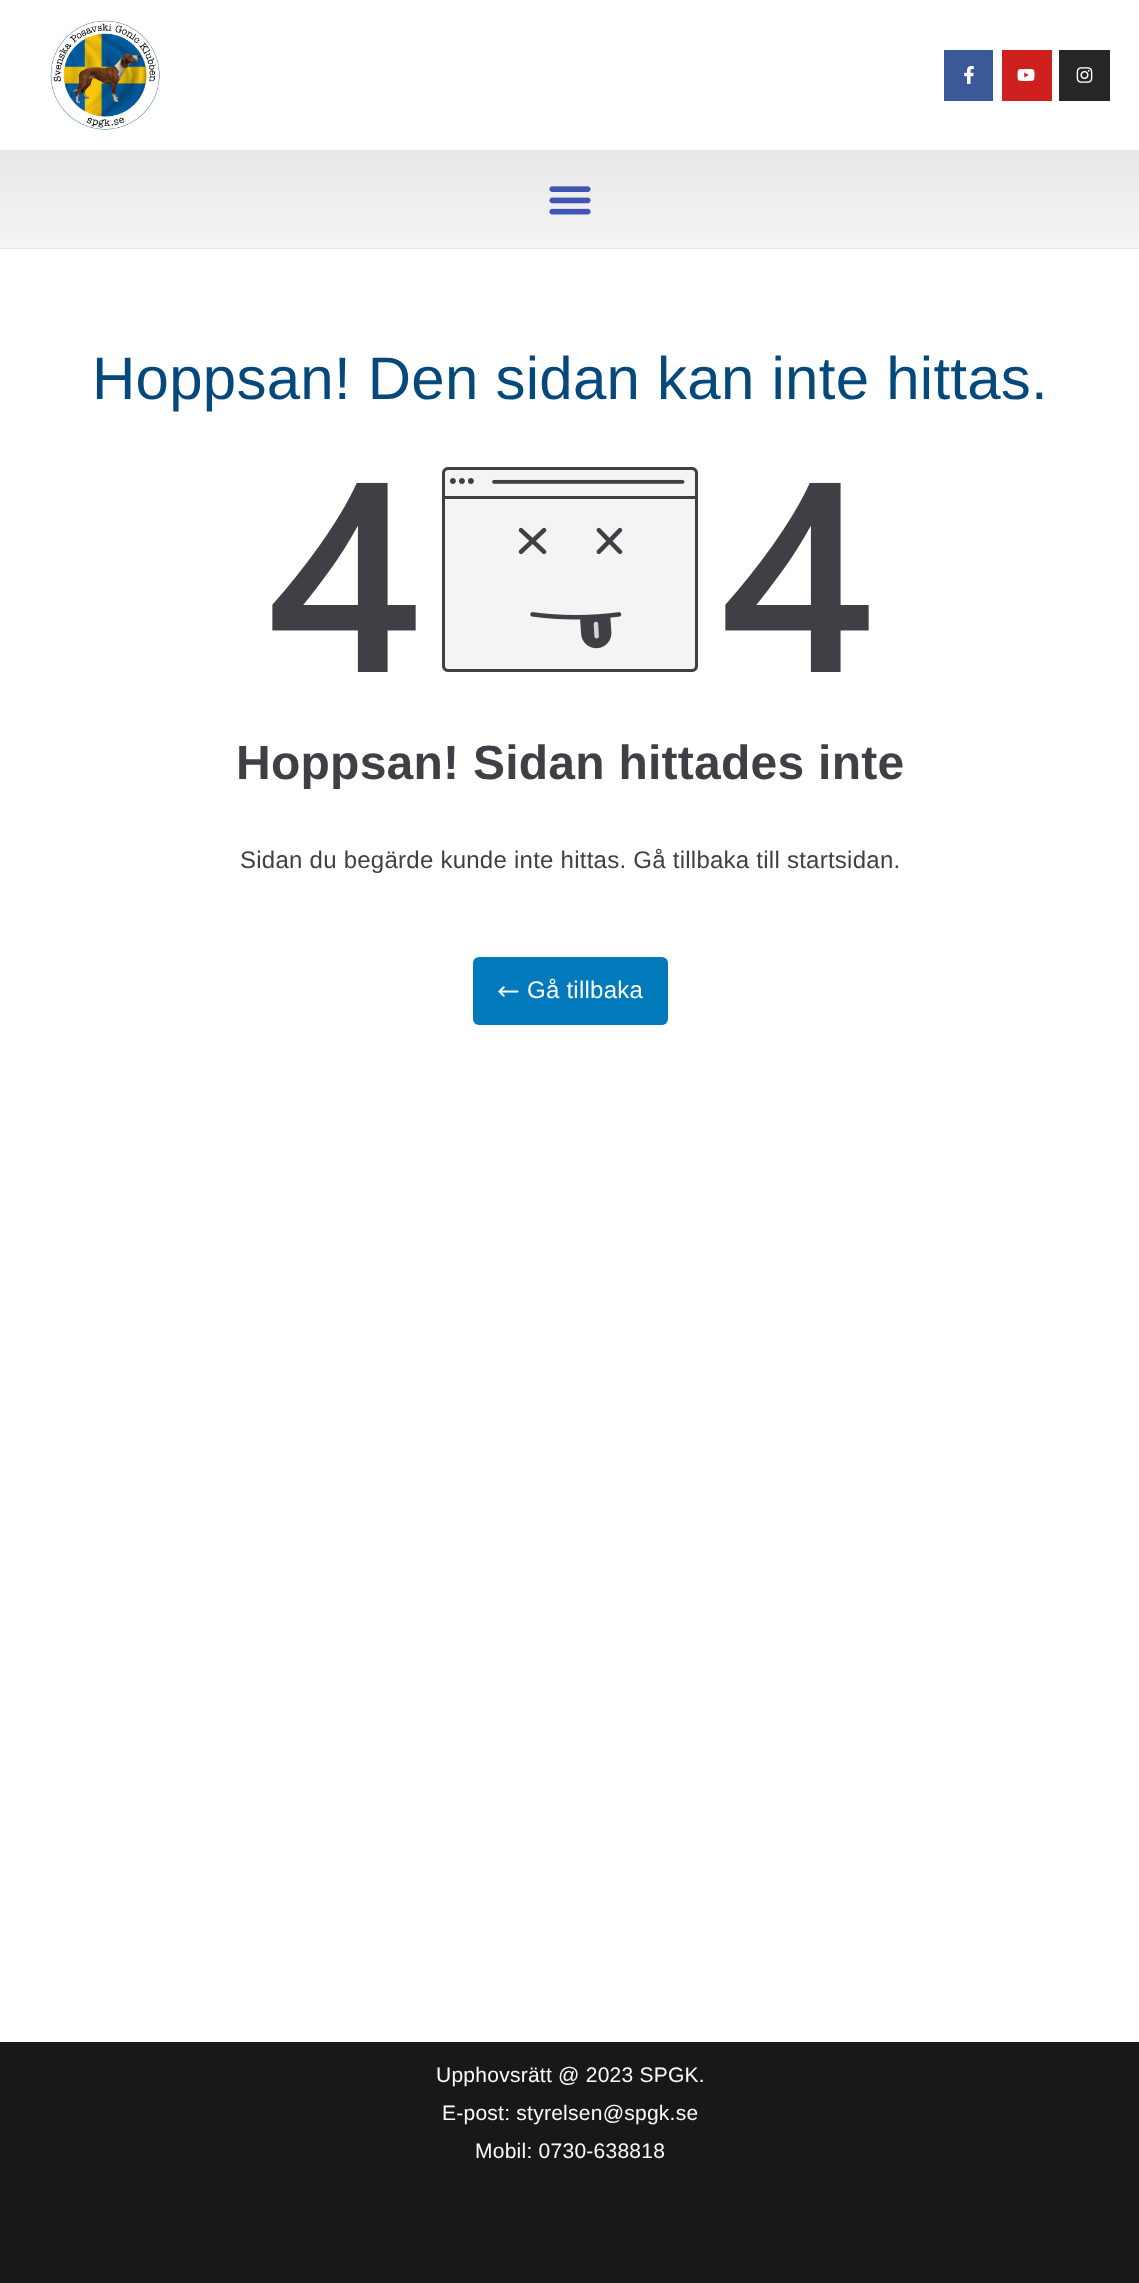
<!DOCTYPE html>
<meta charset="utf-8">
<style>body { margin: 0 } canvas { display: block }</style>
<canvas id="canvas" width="1139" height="2283"></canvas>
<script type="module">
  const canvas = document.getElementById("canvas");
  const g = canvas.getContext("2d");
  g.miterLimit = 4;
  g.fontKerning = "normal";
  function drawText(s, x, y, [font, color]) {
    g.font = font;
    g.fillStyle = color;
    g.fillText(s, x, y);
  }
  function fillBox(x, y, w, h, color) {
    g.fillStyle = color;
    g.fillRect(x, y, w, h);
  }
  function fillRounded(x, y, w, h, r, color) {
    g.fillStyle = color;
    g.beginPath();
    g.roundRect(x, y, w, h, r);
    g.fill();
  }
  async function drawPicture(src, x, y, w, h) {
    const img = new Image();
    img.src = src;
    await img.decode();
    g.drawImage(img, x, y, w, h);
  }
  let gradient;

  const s1 = ["60px Liberation Sans", "#05487B"];
  const s2 = ["bold 48px Liberation Sans", "#3F3F46"];
  const s3 = ["24px Liberation Sans", "#3F3F46"];
  const s4 = ["24px Liberation Sans", "#FAFAFA"];
  const s5 = ["21px Liberation Sans", "#FAFAFA"];

  fillBox(0, 0, 1139, 2283, "#E4E4E7");
  fillBox(0, 0, 1139, 150, "#FFFFFF");
  await drawPicture("pic1.png", 50, 20, 110, 110);
  fillBox(944, 50, 49, 51, "#3B5998");
  await drawPicture("pic2.png", 964, 66, 10, 18);
  fillBox(1002, 50, 50, 51, "#CD201F");
  await drawPicture("pic3.png", 1017, 69, 18, 12);
  fillBox(1059, 50, 51, 51, "#262626");
  await drawPicture("pic4.png", 1076, 67, 17, 16);
  gradient = g.createLinearGradient(570, 150, 570, 248);
  gradient.addColorStop(0, "#E8E8E8");
  gradient.addColorStop(1, "#F4F4F4");
  g.fillStyle = gradient;
  g.fillRect(0, 150, 1139, 98);
  await drawPicture("pic5.png", 549, 186, 42, 29);
  fillBox(0, 249, 1139, 1793, "#FFFFFF");
  g.letterSpacing = "0.25px";
  drawText("Hoppsan! Den sidan kan inte hittas.", 92, 399, s1);
  await drawPicture("pic6.png", 272, 467, 597, 205);
  drawText("Hoppsan! Sidan hittades inte", 236, 779, s2);
  drawText("Sidan du begärde kunde inte hittas. Gå tillbaka till startsidan.", 240, 868, s3);
  fillRounded(473, 957, 195, 68, 6, "#027ABB");
  await drawPicture("pic7.png", 498, 986, 21, 11);
  drawText("Gå tillbaka", 527, 998, s4);
  fillBox(0, 2042, 1139, 241, "#18181B");
  drawText("Upphovsrätt @ 2023 SPGK.", 436, 2082, s5);
  drawText("E-post: styrelsen@spgk.se", 442, 2120, s5);
  drawText("Mobil: 0730-638818", 475, 2158, s5);
</script>
